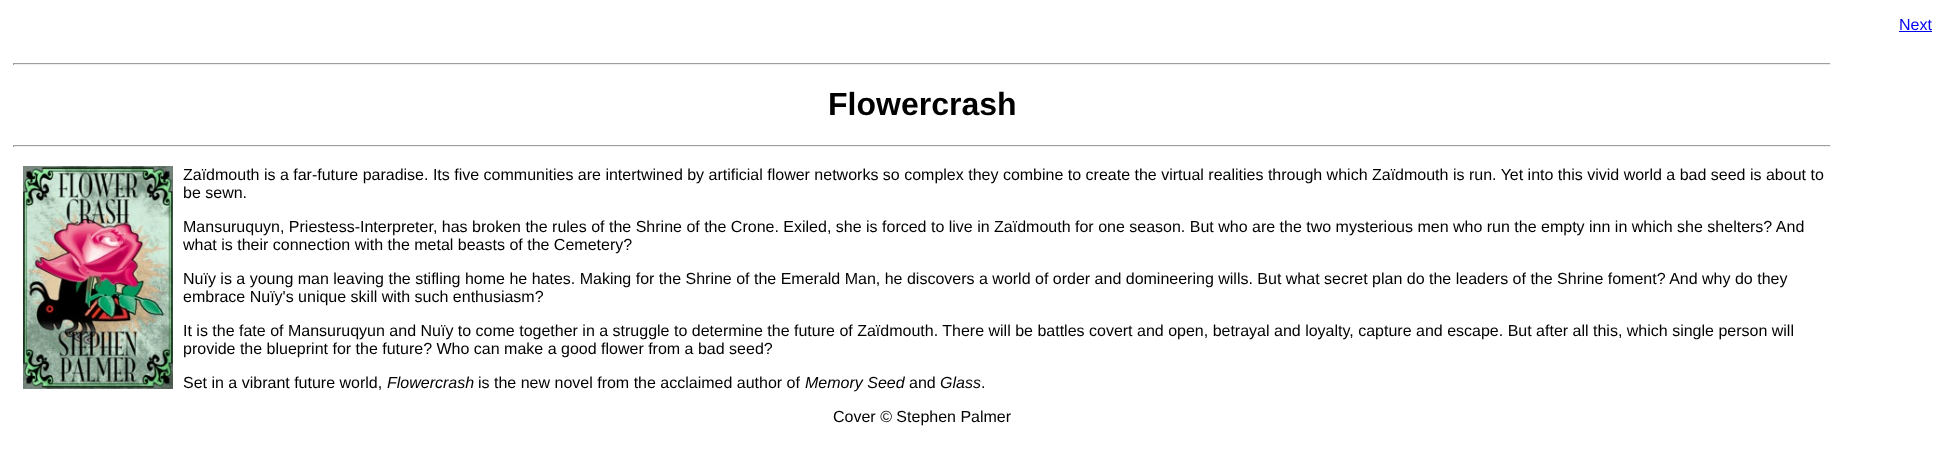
<!DOCTYPE html>
<meta charset="utf-8">
<style>body { margin: 0 } canvas { display: block }</style>
<canvas id="canvas" width="1940" height="459"></canvas>
<script type="module">
  const canvas = document.getElementById("canvas");
  const g = canvas.getContext("2d");
  g.miterLimit = 4;
  g.fontKerning = "normal";
  function drawText(s, x, y, [font, color]) {
    g.font = font;
    g.fillStyle = color;
    g.fillText(s, x, y);
  }
  function fillBox(x, y, w, h, color) {
    g.fillStyle = color;
    g.fillRect(x, y, w, h);
  }
  async function drawPicture(src, x, y, w, h) {
    const img = new Image();
    img.src = src;
    await img.decode();
    g.drawImage(img, x, y, w, h);
  }

  const s1 = ["16px Liberation Sans", "#0000EE"];
  const s2 = ["bold 32px Liberation Sans", "#000000"];
  const s3 = ["16px Liberation Sans", "#000000"];
  const s4 = ["italic 16px Liberation Sans", "#000000"];

  fillBox(0, 0, 1940, 459, "#FFFFFF");
  drawText("Next", 1899, 30, s1);
  fillBox(1899, 31, 33, 1, "#0000EE");
  fillBox(13, 63, 1818, 1, "#9F9F9F");
  fillBox(1830, 63, 1, 2, "#EEEEEE");
  fillBox(13, 64, 1818, 1, "#EEEEEE");
  fillBox(13, 63, 1, 2, "#9F9F9F");
  drawText("Flowercrash", 828, 115, s2);
  fillBox(13, 145, 1818, 1, "#9F9F9F");
  fillBox(1830, 145, 1, 2, "#EEEEEE");
  fillBox(13, 146, 1818, 1, "#EEEEEE");
  fillBox(13, 145, 1, 2, "#9F9F9F");
  await drawPicture("pic1.png", 23, 166, 150, 223);
  drawText("Zaïdmouth is a far-future paradise. Its five communities are intertwined by artificial flower networks so complex they combine to create the virtual realities through which Zaïdmouth is run. Yet into this vivid world a bad seed is about to", 183, 180, s3);
  drawText("be sewn.", 183, 198, s3);
  drawText("Mansuruquyn, Priestess-Interpreter, has broken the rules of the Shrine of the Crone. Exiled, she is forced to live in Zaïdmouth for one season. But who are the two mysterious men who run the empty inn in which she shelters? And", 183, 232, s3);
  drawText("what is their connection with the metal beasts of the Cemetery?", 183, 250, s3);
  drawText("Nuïy is a young man leaving the stifling home he hates. Making for the Shrine of the Emerald Man, he discovers a world of order and domineering wills. But what secret plan do the leaders of the Shrine foment? And why do they", 183, 284, s3);
  drawText("embrace Nuïy's unique skill with such enthusiasm?", 183, 302, s3);
  drawText("It is the fate of Mansuruqyun and Nuïy to come together in a struggle to determine the future of Zaïdmouth. There will be battles covert and open, betrayal and loyalty, capture and escape. But after all this, which single person will", 183, 336, s3);
  drawText("provide the blueprint for the future? Who can make a good flower from a bad seed?", 183, 354, s3);
  drawText("Set in a vibrant future world,", 183, 388, s3);
  drawText("Flowercrash", 387, 388, s4);
  drawText("is the new novel from the acclaimed author of", 478, 388, s3);
  drawText("Memory Seed", 805, 388, s4);
  drawText("and", 909, 388, s3);
  drawText("Glass", 940, 388, s4);
  drawText(".", 981, 388, s3);
  drawText("Cover © Stephen Palmer", 833, 422, s3);
</script>
